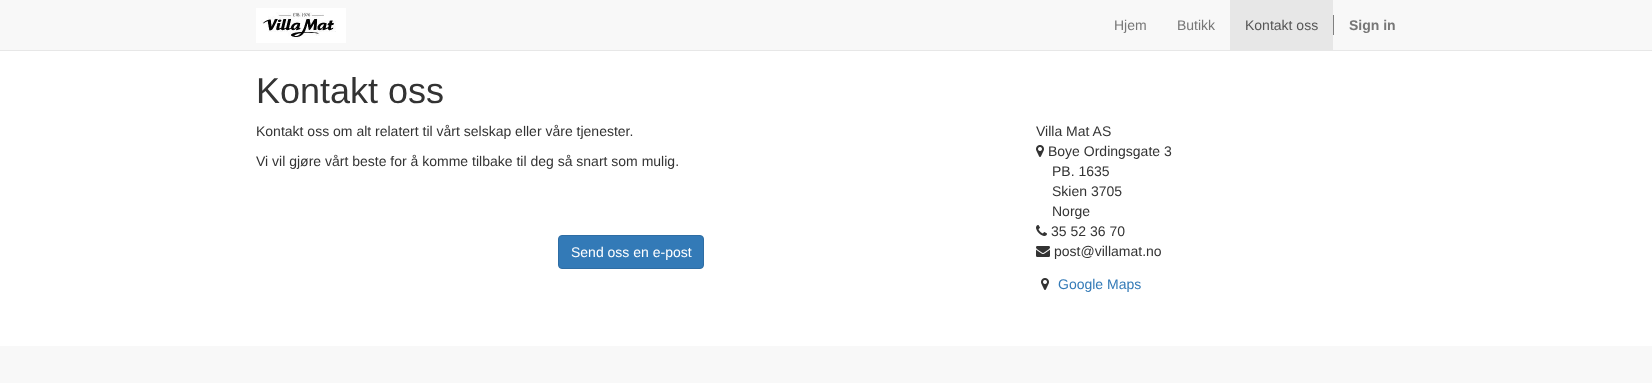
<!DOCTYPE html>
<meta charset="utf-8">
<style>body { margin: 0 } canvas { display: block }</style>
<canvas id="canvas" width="1652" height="383"></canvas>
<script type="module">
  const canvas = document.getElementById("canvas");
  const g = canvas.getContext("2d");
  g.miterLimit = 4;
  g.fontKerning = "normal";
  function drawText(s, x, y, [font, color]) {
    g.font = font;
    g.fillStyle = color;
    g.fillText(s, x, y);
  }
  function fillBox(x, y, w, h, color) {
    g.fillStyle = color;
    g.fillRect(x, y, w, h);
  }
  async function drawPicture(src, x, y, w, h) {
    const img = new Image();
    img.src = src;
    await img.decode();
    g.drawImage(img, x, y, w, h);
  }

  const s1 = ["14px Liberation Sans", "#777777"];
  const s2 = ["14px Liberation Sans", "#555555"];
  const s3 = ["bold 14px Liberation Sans", "#777777"];
  const s4 = ["36px Liberation Sans", "#333333"];
  const s5 = ["14px Liberation Sans", "#333333"];
  const s6 = ["14px Liberation Sans", "#FFFFFF"];
  const s7 = ["14px Liberation Sans", "#337AB7"];

  fillBox(0, 0, 1652, 383, "#FFFFFF");
  fillBox(0, 0, 1652, 50, "#F8F8F8");
  fillBox(0, 50, 1652, 1, "#E7E7E7");
  await drawPicture("pic1.png", 256, 8, 90, 35);
  drawText("Hjem", 1114, 30, s1);
  drawText("Butikk", 1177, 30, s1);
  fillBox(1230, 0, 103, 50, "#E7E7E7");
  drawText("Kontakt oss", 1245, 30, s2);
  fillBox(1333, 15, 1, 20, "#808080");
  drawText("Sign in", 1349, 30, s3);
  drawText("Kontakt oss", 256, 103, s4);
  drawText("Kontakt oss om alt relatert til vårt selskap eller våre tjenester.", 256, 136, s5);
  drawText("Vi vil gjøre vårt beste for å komme tilbake til deg så snart som mulig.", 256, 166, s5);
  g.fillStyle = "#337AB7";
  g.beginPath();
  g.roundRect(558.5, 235.5, 145, 33, 3.5);
  g.fill();
  g.strokeStyle = "#2E6DA4";
  g.stroke();
  drawText("Send oss en e-post", 571, 257, s6);
  drawText("Villa Mat AS", 1036, 136, s5);
  await drawPicture("pic2.png", 1036, 145, 8, 12);
  drawText("Boye Ordingsgate 3", 1048, 156, s5);
  drawText("PB. 1635", 1052, 176, s5);
  drawText("Skien 3705", 1052, 196, s5);
  drawText("Norge", 1052, 216, s5);
  await drawPicture("pic3.png", 1036, 225, 11, 11);
  drawText("35 52 36 70", 1051, 236, s5);
  await drawPicture("pic4.png", 1036, 246, 14, 11);
  drawText("post@villamat.no", 1054, 256, s5);
  await drawPicture("pic2.png", 1041, 278, 8, 12);
  drawText("Google Maps", 1058, 289, s7);
  fillBox(0, 346, 1652, 37, "#F8F8F8");
</script>
